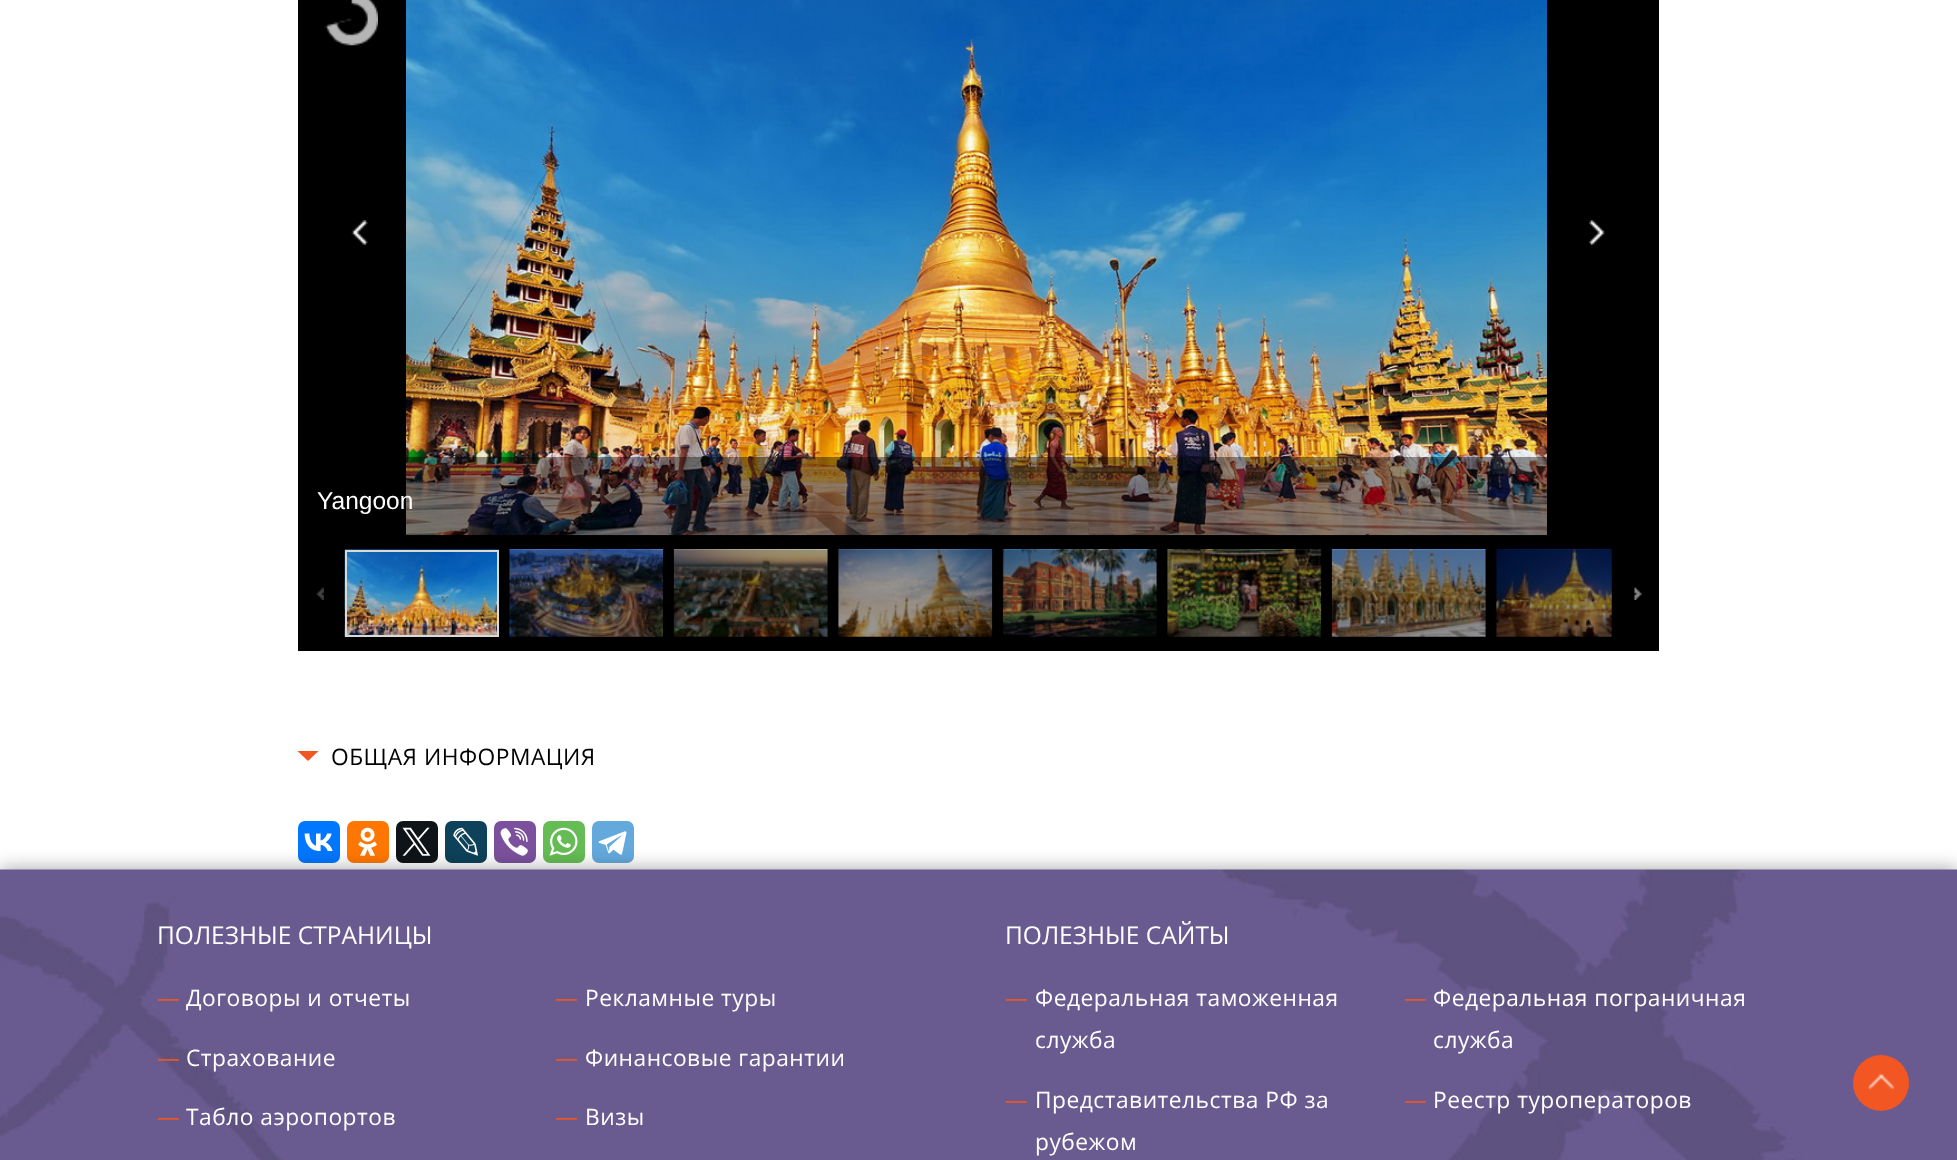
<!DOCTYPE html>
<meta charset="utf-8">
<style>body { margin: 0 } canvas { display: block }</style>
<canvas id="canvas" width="1957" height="1160"></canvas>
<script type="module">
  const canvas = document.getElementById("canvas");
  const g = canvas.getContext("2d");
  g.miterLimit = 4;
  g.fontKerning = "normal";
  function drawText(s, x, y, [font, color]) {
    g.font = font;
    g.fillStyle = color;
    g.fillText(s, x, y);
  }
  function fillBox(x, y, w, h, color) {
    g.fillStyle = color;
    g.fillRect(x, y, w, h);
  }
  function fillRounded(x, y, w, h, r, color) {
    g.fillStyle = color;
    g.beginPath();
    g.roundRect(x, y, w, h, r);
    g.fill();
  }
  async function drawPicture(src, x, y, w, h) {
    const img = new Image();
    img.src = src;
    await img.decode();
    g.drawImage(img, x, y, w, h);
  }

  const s1 = ["24.5px Liberation Sans", "#FFFFFF"];
  const s2 = ["22.75px Open Sans", "#000000"];
  const s3 = ["24.5px Open Sans", "#FFFFFF"];
  const s4 = ["22.75px Open Sans", "#F15623"];
  const s5 = ["22.75px Open Sans", "#FFFFFF"];

  fillBox(0, 0, 1957, 1160, "#FFFFFF");
  fillBox(298, 0, 1361, 651, "#000000");
  await drawPicture("pic1.png", 325, 0, 53, 46);
  await drawPicture("pic2.png", 406, 0, 1141, 536);
  await drawPicture("pic3.png", 351, 220, 17, 25);
  await drawPicture("pic4.png", 1589, 220, 16, 25);
  fillBox(406, 457, 1141, 79, "rgba(0, 0, 0, 0.4)");
  drawText("Yangoon", 317, 509, s1);
  await drawPicture("pic5.png", 316, 587, 8, 13);
  await drawPicture("pic6.png", 344, 549, 155, 88);
  g.strokeStyle = "#D9D9D9";
  g.lineWidth = 2;
  g.strokeRect(346, 551, 152, 85);
  await drawPicture("pic7.png", 509, 549, 155, 88);
  await drawPicture("pic8.png", 673, 549, 155, 88);
  await drawPicture("pic9.png", 838, 549, 155, 88);
  await drawPicture("pic10.png", 1002, 549, 155, 88);
  await drawPicture("pic11.png", 1167, 549, 155, 88);
  await drawPicture("pic12.png", 1331, 549, 155, 88);
  await drawPicture("pic13.png", 1496, 549, 116, 88);
  await drawPicture("pic14.png", 1634, 587, 8, 13);
  g.fillStyle = "#F15623";
  g.beginPath();
  g.moveTo(297.5, 751);
  g.lineTo(318.5, 751);
  g.lineTo(308, 761);
  g.closePath();
  g.fill();
  g.letterSpacing = "0.5px";
  drawText("ОБЩАЯ ИНФОРМАЦИЯ", 331, 765, s2);
  fillRounded(298, 821, 42, 42, 7, "#0077FF");
  await drawPicture("pic15.png", 304, 833, 29, 18);
  fillRounded(347, 821, 42, 42, 7, "#FF7700");
  await drawPicture("pic16.png", 358, 827, 19, 29);
  fillRounded(396, 821, 42, 42, 7, "#0F1419");
  await drawPicture("pic17.png", 402, 827, 29, 29);
  fillRounded(445, 821, 42, 42, 7, "#0D425A");
  await drawPicture("pic18.png", 453, 827, 25, 29);
  fillRounded(494, 821, 42, 42, 7, "#7B519D");
  await drawPicture("pic19.png", 500, 827, 28, 29);
  fillRounded(543, 821, 42, 42, 7, "#65BC54");
  await drawPicture("pic20.png", 549, 827, 29, 29);
  fillRounded(592, 821, 42, 42, 7, "#64A9DC");
  await drawPicture("pic21.png", 598, 831, 29, 24);
  g.fillStyle = "rgba(0, 0, 0, 0.33)";
  g.filter = "blur(9px)";
  g.beginPath();
  g.rect(0, 868, 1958, 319);
  g.fill();
  g.filter = "none";
  await drawPicture("pic22.png", 0, 869, 1957, 291);
  g.letterSpacing = "0px";
  drawText("ПОЛЕЗНЫЕ СТРАНИЦЫ", 157, 944, s3);
  drawText("—", 157, 1006, s4);
  g.letterSpacing = "0.5px";
  drawText("Договоры и отчеты", 186, 1006, s5);
  g.letterSpacing = "0px";
  drawText("—", 555, 1006, s4);
  g.letterSpacing = "0.5px";
  drawText("Рекламные туры", 585, 1006, s5);
  g.letterSpacing = "0px";
  drawText("—", 157, 1066, s4);
  g.letterSpacing = "0.5px";
  drawText("Страхование", 186, 1066, s5);
  g.letterSpacing = "0px";
  drawText("—", 555, 1066, s4);
  g.letterSpacing = "0.5px";
  drawText("Финансовые гарантии", 585, 1066, s5);
  g.letterSpacing = "0px";
  drawText("—", 157, 1125, s4);
  g.letterSpacing = "0.5px";
  drawText("Табло аэропортов", 186, 1125, s5);
  g.letterSpacing = "0px";
  drawText("—", 555, 1125, s4);
  g.letterSpacing = "0.5px";
  drawText("Визы", 585, 1125, s5);
  g.letterSpacing = "0px";
  drawText("ПОЛЕЗНЫЕ САЙТЫ", 1005, 944, s3);
  drawText("—", 1005, 1006, s4);
  g.letterSpacing = "0.5px";
  drawText("Федеральная таможенная", 1035, 1006, s5);
  drawText("служба", 1035, 1048, s5);
  g.letterSpacing = "0px";
  drawText("—", 1404, 1006, s4);
  g.letterSpacing = "0.5px";
  drawText("Федеральная пограничная", 1433, 1006, s5);
  drawText("служба", 1433, 1048, s5);
  g.letterSpacing = "0px";
  drawText("—", 1005, 1108, s4);
  g.letterSpacing = "0.5px";
  drawText("Представительства РФ за", 1035, 1108, s5);
  drawText("рубежом", 1035, 1150, s5);
  g.letterSpacing = "0px";
  drawText("—", 1404, 1108, s4);
  g.letterSpacing = "0.5px";
  drawText("Реестр туроператоров", 1433, 1108, s5);
  g.fillStyle = "#F15623";
  g.beginPath();
  g.arc(1881, 1083, 28, 0, Math.PI * 2);
  g.fill();
  await drawPicture("pic23.png", 1868, 1073, 27, 17);
</script>
